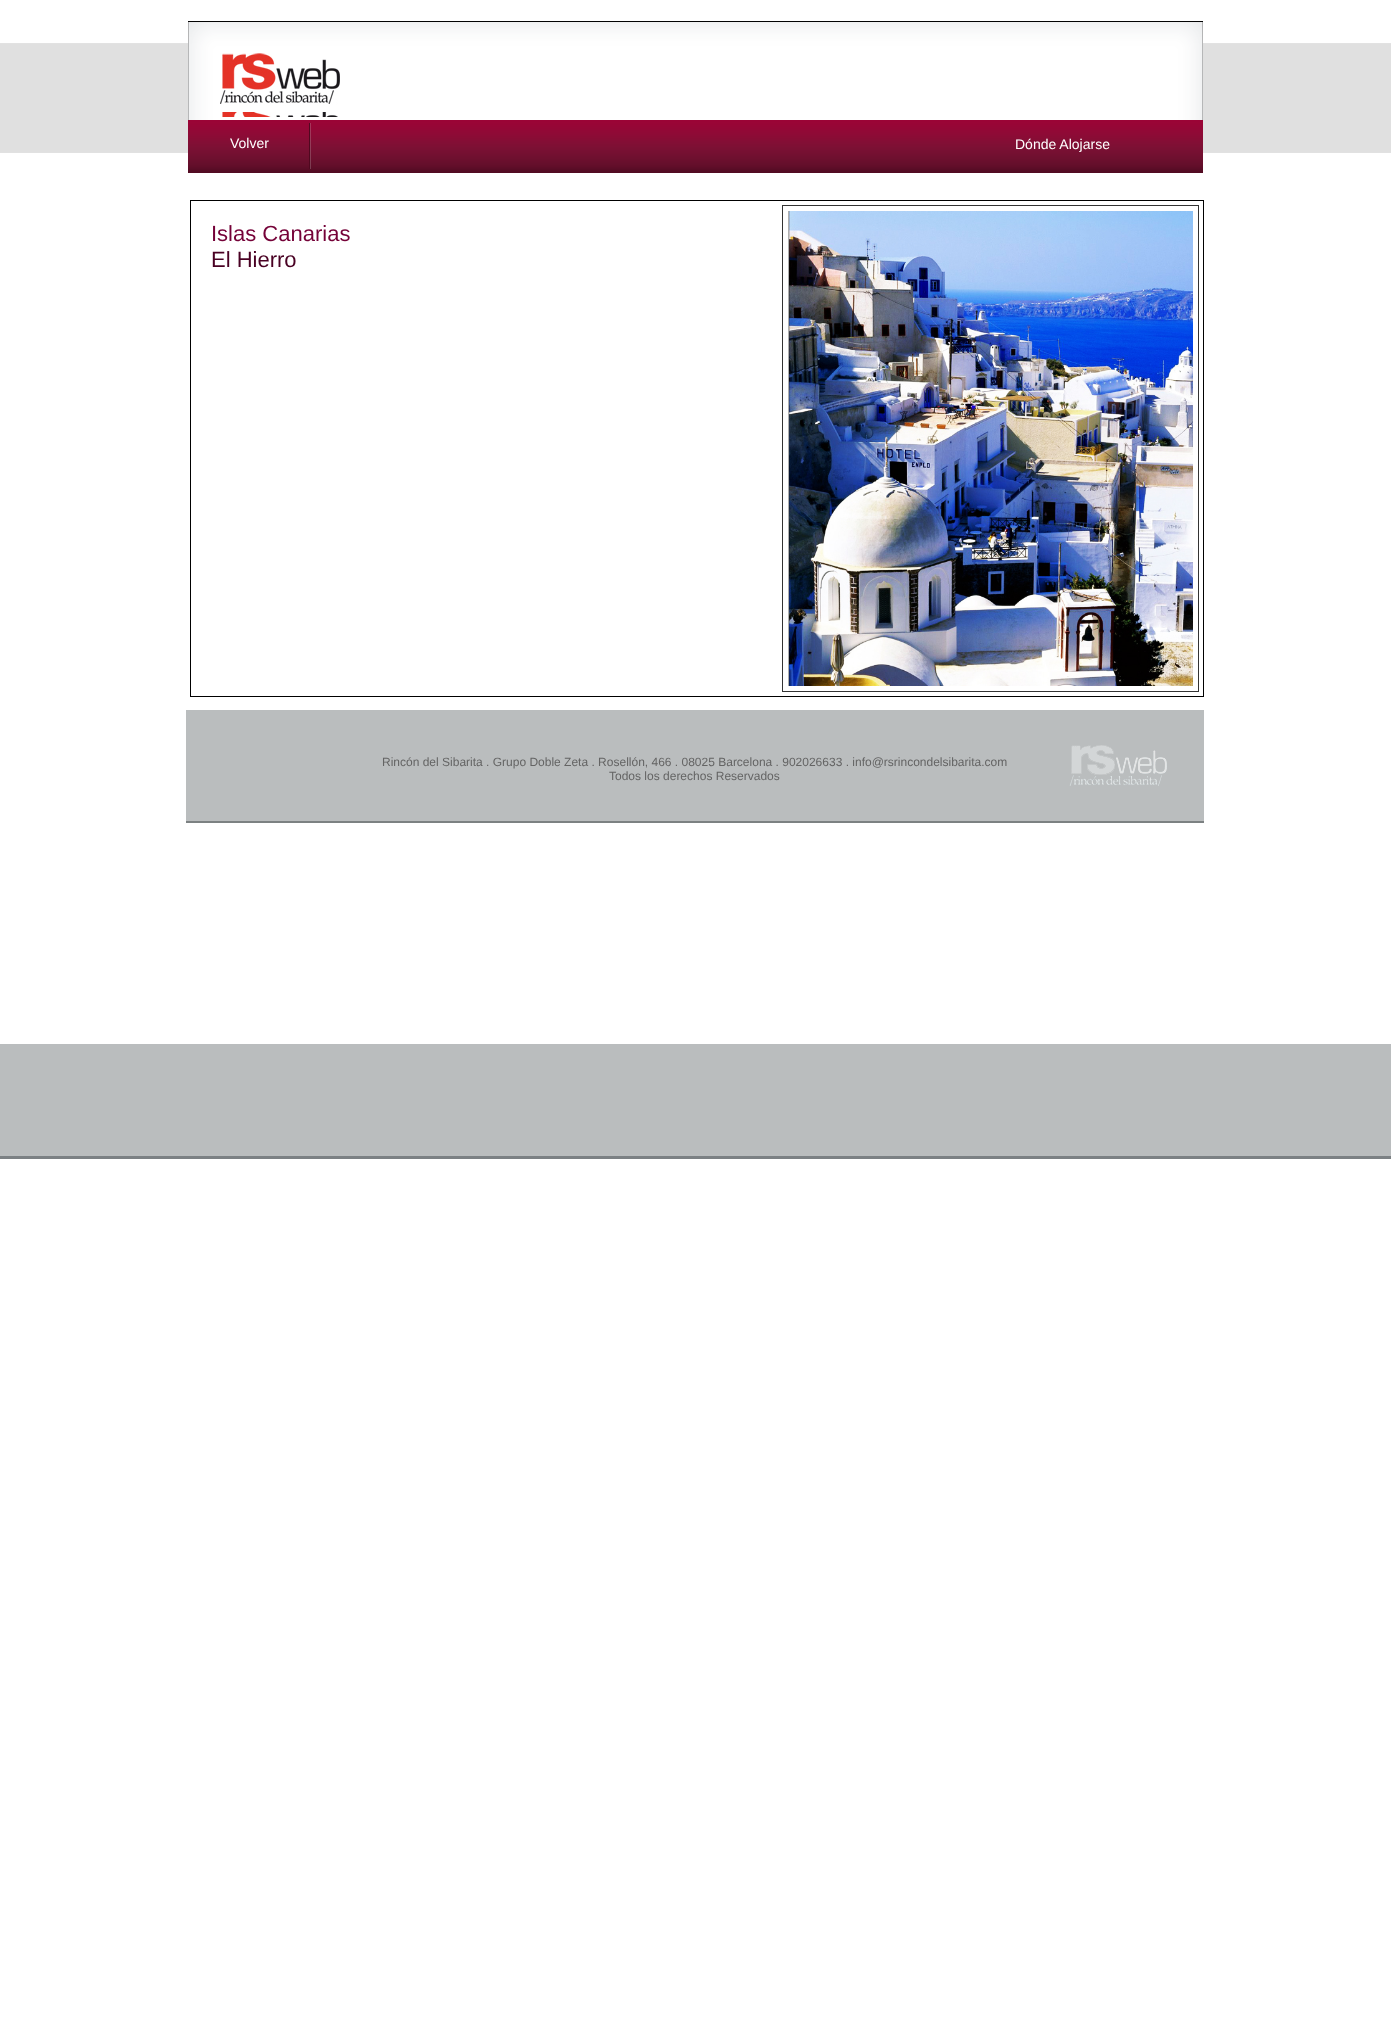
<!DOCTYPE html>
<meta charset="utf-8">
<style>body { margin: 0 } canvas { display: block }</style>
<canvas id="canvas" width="1391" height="2017"></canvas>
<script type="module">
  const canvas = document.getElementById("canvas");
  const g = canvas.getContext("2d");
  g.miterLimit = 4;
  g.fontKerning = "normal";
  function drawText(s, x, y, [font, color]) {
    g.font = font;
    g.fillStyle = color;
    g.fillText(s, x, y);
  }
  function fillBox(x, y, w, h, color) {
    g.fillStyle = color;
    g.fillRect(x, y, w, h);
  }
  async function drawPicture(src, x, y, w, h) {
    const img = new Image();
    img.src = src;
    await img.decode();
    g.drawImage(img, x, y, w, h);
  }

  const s1 = ["14px Liberation Sans", "#FFFFFF"];
  const s2 = ["22px Liberation Sans", "#750238"];
  const s3 = ["22px Liberation Sans", "#490123"];
  const s4 = ["12px Liberation Sans", "#646464"];

  fillBox(0, 0, 1391, 2017, "#FFFFFF");
  await drawPicture("pic1.png", 0, 43, 1391, 1116);
  await drawPicture("pic2.png", 188, 21, 1015, 99);
  await drawPicture("pic3.png", 220, 53, 120, 59);
  await drawPicture("pic4.png", 222, 112, 116, 5);
  await drawPicture("pic5.png", 188, 120, 1015, 53);
  drawText("Volver", 230, 148, s1);
  await drawPicture("pic6.png", 309, 123, 2, 46);
  drawText("Dónde Alojarse", 1015, 149, s1);
  g.strokeStyle = "#000000";
  g.strokeRect(190.5, 200.5, 1013, 496);
  drawText("Islas Canarias", 211, 241, s2);
  drawText("El Hierro", 211, 267, s3);
  g.strokeStyle = "#333333";
  g.strokeRect(782.5, 205.5, 416, 486);
  await drawPicture("pic7.png", 788, 211, 405, 475);
  await drawPicture("pic8.png", 186, 710, 1018, 113);
  drawText("Rincón del Sibarita . Grupo Doble Zeta . Rosellón, 466 . 08025 Barcelona . 902026633 . info@rsrincondelsibarita.com", 382, 766, s4);
  drawText("Todos los derechos Reservados", 609, 780, s4);
</script>
